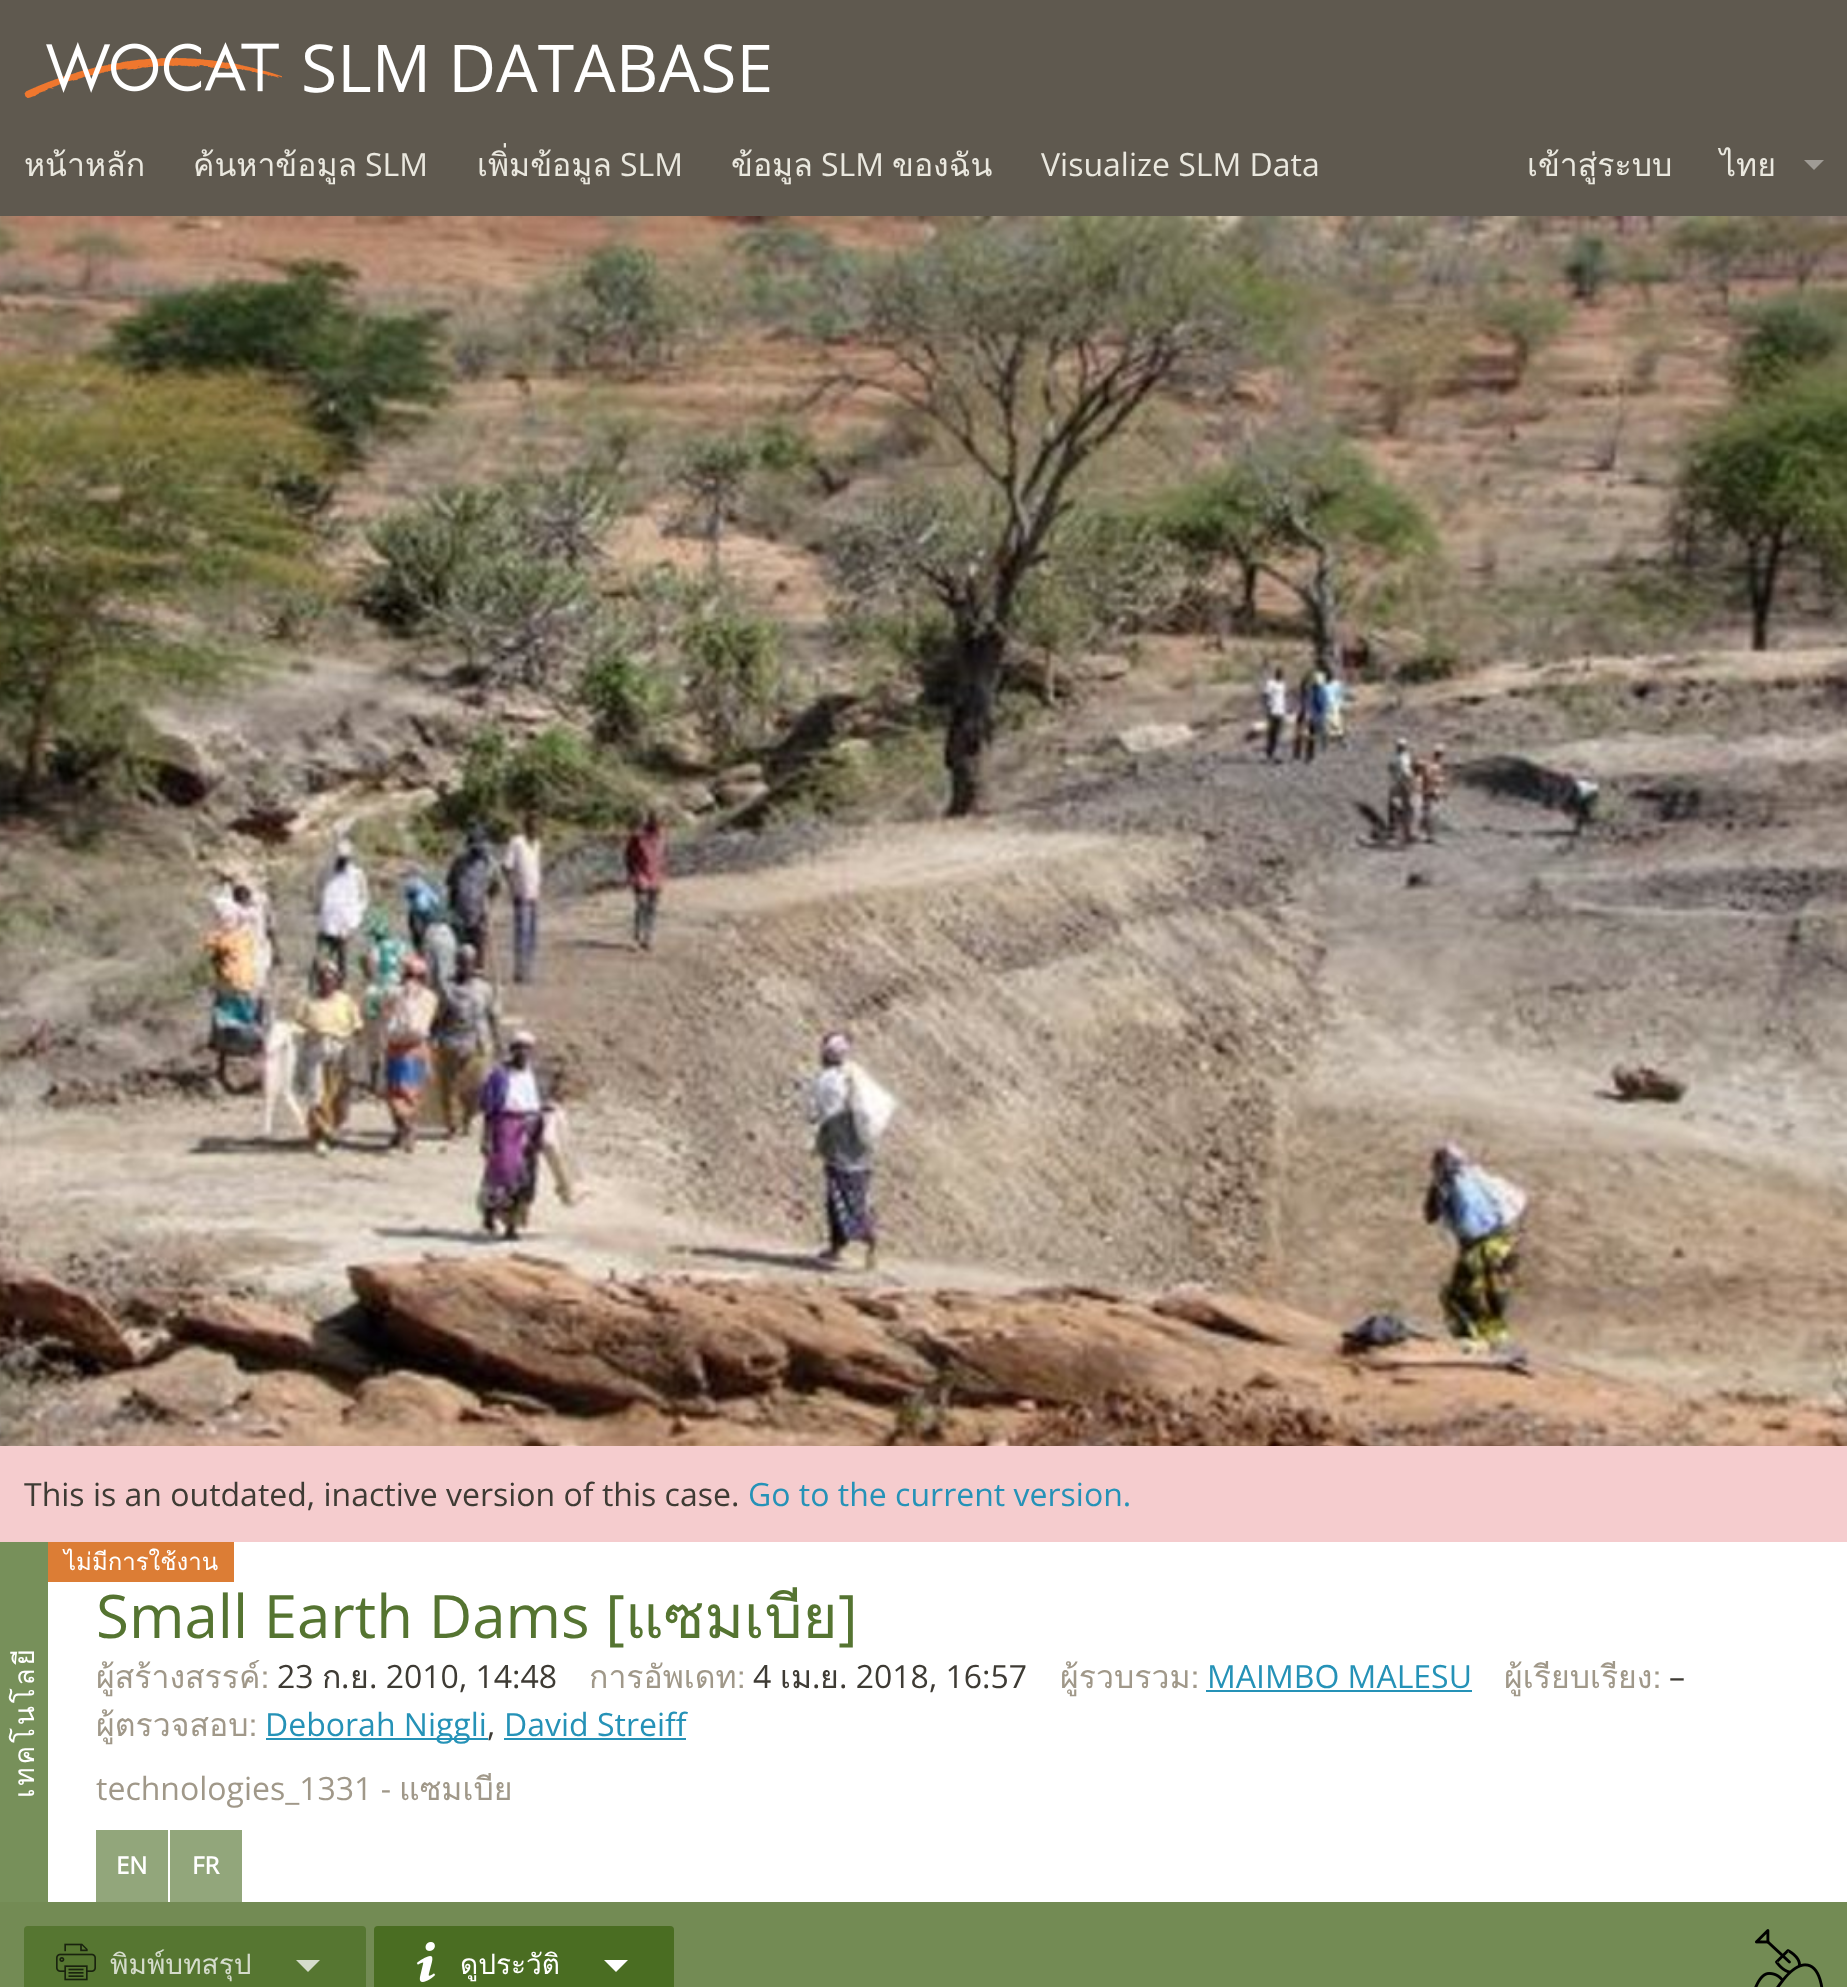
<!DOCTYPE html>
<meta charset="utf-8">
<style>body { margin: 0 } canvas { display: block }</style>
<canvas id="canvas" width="1847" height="1987"></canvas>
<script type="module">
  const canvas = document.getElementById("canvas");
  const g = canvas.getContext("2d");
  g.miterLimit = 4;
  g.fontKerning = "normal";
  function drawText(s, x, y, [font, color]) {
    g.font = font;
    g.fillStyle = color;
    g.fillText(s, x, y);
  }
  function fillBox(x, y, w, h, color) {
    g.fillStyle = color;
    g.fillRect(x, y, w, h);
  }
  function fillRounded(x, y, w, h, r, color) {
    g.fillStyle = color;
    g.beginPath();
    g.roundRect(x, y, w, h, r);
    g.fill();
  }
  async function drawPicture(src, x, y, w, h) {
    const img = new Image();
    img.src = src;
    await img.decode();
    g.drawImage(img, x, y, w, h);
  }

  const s1 = ["66px Open Sans", "#FFFFFF"];
  const s2 = ["32px Loma", "#EAE8DF"];
  const s3 = ["32px Open Sans", "#EAE8DF"];
  const s4 = ["32px Open Sans", "#3E3B34"];
  const s5 = ["32px Open Sans", "#2592B7"];
  const s6 = ["24px Loma", "#FFFFFF"];
  const s7 = ["60px Open Sans", "#557431"];
  const s8 = ["60px Loma", "#557431"];
  const s9 = ["32px Loma", "#A09889"];
  const s10 = ["32px Loma", "#3E3B34"];
  const s11 = ["32px Open Sans", "#A09889"];
  const s12 = ["bold 24px Open Sans", "#FFFFFF"];
  const s13 = ["28px Loma", "#D5DCCC"];
  const s14 = ["28px Loma", "#FFFFFF"];

  fillBox(0, 0, 1847, 1987, "#738B54");
  fillBox(0, 0, 1847, 216, "#5F594F");
  await drawPicture("pic1.png", 24, 42, 258, 56);
  drawText("SLM DATABASE", 301, 92, s1);
  drawText("หน้าหลัก", 24, 176, s2);
  drawText("ค้นหาข้อมูล", 193, 176, s2);
  drawText("SLM", 365, 176, s3);
  drawText("เพิ่มข้อมูล", 477, 176, s2);
  drawText("SLM", 620, 176, s3);
  drawText("ข้อมูล", 731, 176, s2);
  drawText("SLM", 821, 176, s3);
  drawText("ของฉัน", 892, 176, s2);
  drawText("Visualize SLM Data", 1041, 176, s3);
  drawText("เข้าสู่ระบบ", 1527, 176, s2);
  drawText("ไทย", 1720, 176, s2);
  g.fillStyle = "#9F9B95";
  g.beginPath();
  g.moveTo(1804, 160);
  g.lineTo(1824, 160);
  g.lineTo(1814, 170);
  g.closePath();
  g.fill();
  await drawPicture("pic2.png", 0, 216, 1847, 1230);
  fillBox(0, 1446, 1847, 96, "#F5CCCE");
  drawText("This is an outdated, inactive version of this case.", 24, 1506, s4);
  drawText("Go to the current version.", 748, 1506, s5);
  fillBox(48, 1542, 1799, 360, "#FFFFFF");
  fillBox(48, 1542, 186, 40, "#DC7D35");
  drawText("ไม่มีการใช้งาน", 64, 1570, s6);
  drawText("Small Earth Dams [", 96, 1638, s7);
  drawText("แซมเบีย", 625, 1638, s8);
  drawText("]", 838, 1638, s7);
  fillBox(0, 1542, 48, 360, "#77905A");
  g.letterSpacing = "2.75px";
  g.font = "28px Loma";
  g.fillStyle = "#FFFFFF";
  g.save();
  g.translate(34, 1798);
  g.rotate(-90 * Math.PI / 180);
  g.fillText("เทคโนโลยี", 0, 0);
  g.restore();
  g.letterSpacing = "0px";
  drawText("ผู้สร้างสรรค์:", 96, 1688, s9);
  drawText("23", 277, 1688, s4);
  drawText("ก", 322, 1688, s10);
  drawText(".", 341, 1688, s4);
  drawText("ย", 350, 1688, s10);
  drawText(". 2010, 14:48", 369, 1688, s4);
  drawText("การอัพเดท:", 589, 1688, s9);
  drawText("4", 753, 1688, s4);
  drawText("เม", 780, 1688, s10);
  drawText(".", 812, 1688, s4);
  drawText("ย", 820, 1688, s10);
  drawText(". 2018, 16:57", 839, 1688, s4);
  drawText("ผู้รวบรวม:", 1060, 1688, s9);
  drawText("MAIMBO MALESU", 1207, 1688, s5);
  fillBox(1206, 1690, 266, 2, "#2592B7");
  drawText("ผู้เรียบเรียง:", 1504, 1688, s9);
  drawText("–", 1669, 1688, s4);
  drawText("ผู้ตรวจสอบ:", 96, 1736, s9);
  fillBox(266, 1738, 222, 2, "#2592B7");
  drawText("Deborah Niggli", 265, 1736, s5);
  drawText(",", 487, 1736, s4);
  drawText("David Streiff", 504, 1736, s5);
  fillBox(504, 1738, 182, 2, "#2592B7");
  drawText("technologies_1331 -", 96, 1800, s11);
  drawText("แซมเบีย", 399, 1800, s9);
  fillBox(96, 1830, 72, 72, "#92A67B");
  drawText("EN", 116, 1874, s12);
  fillBox(170, 1830, 72, 72, "#92A67B");
  drawText("FR", 192, 1874, s12);
  fillRounded(24, 1926, 342, 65, 4, "#567631");
  await drawPicture("pic3.png", 56, 1943, 40, 38);
  drawText("พิมพ์บทสรุป", 110, 1974, s13);
  g.beginPath();
  g.moveTo(296, 1960);
  g.lineTo(320, 1960);
  g.lineTo(308, 1972);
  g.closePath();
  g.fill();
  fillRounded(374, 1926, 300, 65, 4, "#4A6D22");
  await drawPicture("pic4.png", 416, 1942, 20, 40);
  drawText("ดูประวัติ", 460, 1974, s14);
  g.beginPath();
  g.moveTo(604, 1960);
  g.lineTo(628, 1960);
  g.lineTo(616, 1972);
  g.closePath();
  g.fill();
  await drawPicture("pic5.png", 1754, 1929, 70, 58);
</script>
